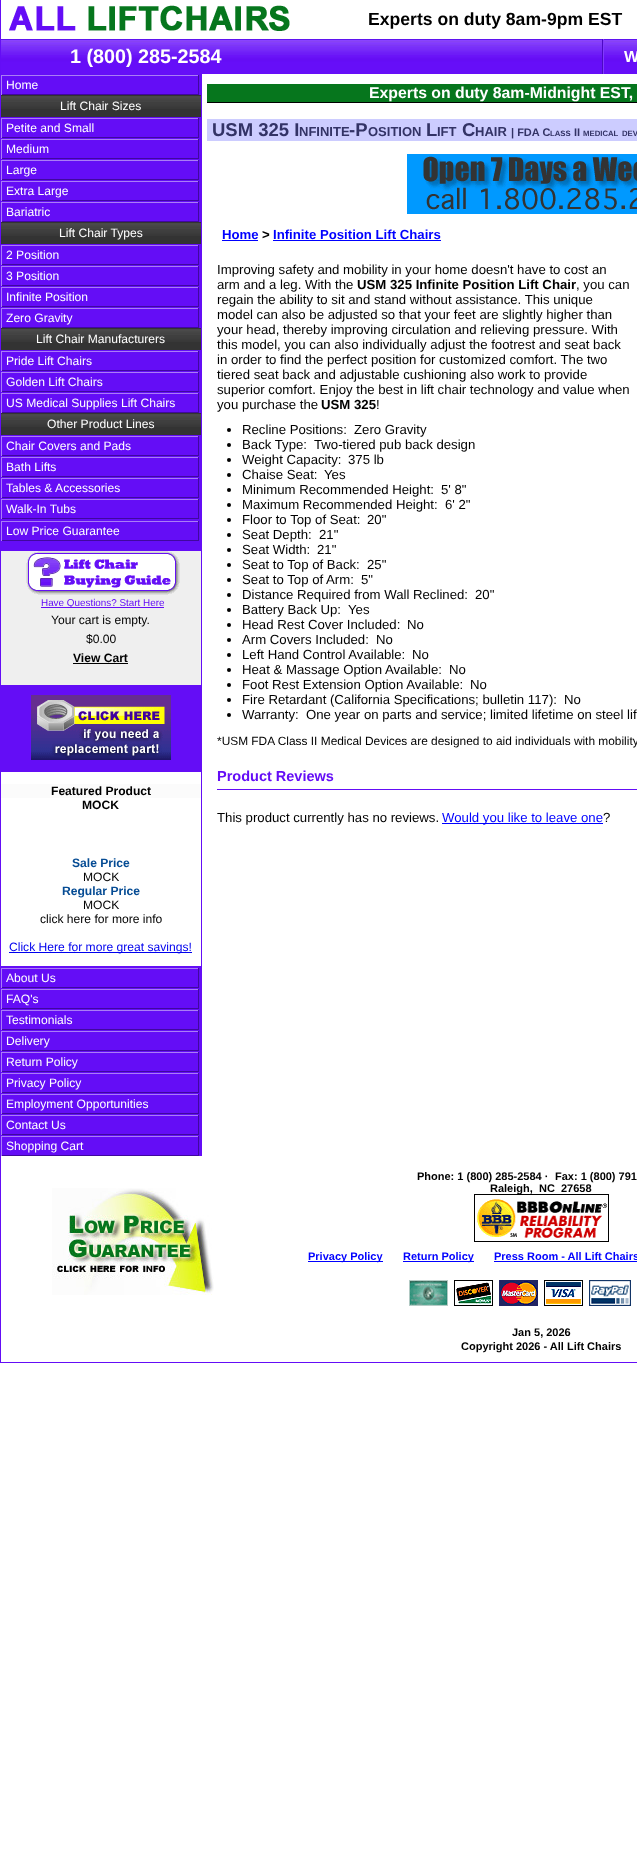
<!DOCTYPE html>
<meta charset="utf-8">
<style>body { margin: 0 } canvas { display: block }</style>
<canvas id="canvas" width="637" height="1870"></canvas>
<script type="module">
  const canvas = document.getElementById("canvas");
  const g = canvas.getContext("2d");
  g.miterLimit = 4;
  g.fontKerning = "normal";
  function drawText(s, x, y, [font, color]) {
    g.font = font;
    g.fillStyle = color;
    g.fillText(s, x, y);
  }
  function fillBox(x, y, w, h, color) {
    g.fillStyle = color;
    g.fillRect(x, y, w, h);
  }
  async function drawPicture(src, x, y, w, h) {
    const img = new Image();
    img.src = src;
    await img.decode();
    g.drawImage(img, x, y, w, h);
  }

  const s1 = ["bold 17.6px Liberation Sans", "#000000"];
  const s2 = ["bold 19.75px Liberation Sans", "#FFFFFF"];
  const s3 = ["bold 16px Liberation Sans", "#FFFFFF"];
  const s4 = ["12.1px Liberation Sans", "#FFFFFF"];
  const s5 = ["9.9px Liberation Sans", "#640DF6"];
  const s6 = ["12.1px Liberation Sans", "#000000"];
  const s7 = ["bold 12.1px Liberation Sans", "#000000"];
  const s8 = ["bold 12.1px Liberation Sans", "#064C94"];
  const s9 = ["12.1px Liberation Sans", "#0000EE"];
  const s10 = ["bold 15.8px Liberation Sans", "#FFFFFF"];
  const s11 = ["bold 18.5px Liberation Sans", "#333366"];
  const s12 = ["bold 13px Liberation Sans", "#333366"];
  const s13 = ["bold 11px Liberation Sans", "#333366"];
  const s14 = ["bold 7.75px Liberation Sans", "#333366"];
  const s15 = ["bold 13.2px Liberation Sans", "#0000FF"];
  const s16 = ["bold 13.2px Liberation Sans", "#000000"];
  const s17 = ["13.2px Liberation Sans", "#000000"];
  const s18 = ["11.9px Liberation Sans", "#000000"];
  const s19 = ["bold 14.5px Liberation Sans", "#640DF6"];
  const s20 = ["13.2px Liberation Sans", "#0000FF"];
  const s21 = ["bold 11px Liberation Sans", "#000000"];
  const s22 = ["bold 11px Liberation Sans", "#0000FF"];

  fillBox(0, 0, 637, 1870, "#FFFFFF");
  fillBox(0, 0, 1, 1363, "#640DF6");
  await drawPicture("pic1.png", 9, 5, 281, 26);
  drawText("Experts on duty 8am-9pm EST", 368, 25, s1);
  await drawPicture("pic2.png", 1, 39, 636, 35);
  drawText("1 (800) 285-2584", 70, 63, s2);
  fillBox(602, 39, 1, 35, "#4C09C3");
  fillBox(603, 39, 1, 35, "#823AFD");
  drawText("W", 624, 62, s3);
  fillBox(1, 74, 201, 1082, "#640DF6");
  fillBox(1, 75, 198, 1, "#AA7CF6");
  fillBox(198, 75, 1, 20, "#40089E");
  fillBox(1, 94, 198, 1, "#40089E");
  fillBox(1, 75, 1, 20, "#AA7CF6");
  drawText("Home", 6, 89, s4);
  fillBox(1, 95, 200, 22, "#333333");
  await drawPicture("pic3.png", 1, 96, 200, 13);
  drawText("Lift Chair Sizes", 60, 110, s4);
  fillBox(1, 118, 198, 1, "#AA7CF6");
  fillBox(198, 118, 1, 20, "#40089E");
  fillBox(1, 137, 198, 1, "#40089E");
  fillBox(1, 118, 1, 20, "#AA7CF6");
  drawText("Petite and Small", 6, 132, s4);
  fillBox(1, 139, 198, 1, "#AA7CF6");
  fillBox(198, 139, 1, 20, "#40089E");
  fillBox(1, 158, 198, 1, "#40089E");
  fillBox(1, 139, 1, 20, "#AA7CF6");
  drawText("Medium", 6, 153, s4);
  fillBox(1, 160, 198, 1, "#AA7CF6");
  fillBox(198, 160, 1, 20, "#40089E");
  fillBox(1, 179, 198, 1, "#40089E");
  fillBox(1, 160, 1, 20, "#AA7CF6");
  drawText("Large", 6, 174, s4);
  fillBox(1, 181, 198, 1, "#AA7CF6");
  fillBox(198, 181, 1, 20, "#40089E");
  fillBox(1, 200, 198, 1, "#40089E");
  fillBox(1, 181, 1, 20, "#AA7CF6");
  drawText("Extra Large", 6, 195, s4);
  fillBox(1, 202, 198, 1, "#AA7CF6");
  fillBox(198, 202, 1, 20, "#40089E");
  fillBox(1, 221, 198, 1, "#40089E");
  fillBox(1, 202, 1, 20, "#AA7CF6");
  drawText("Bariatric", 6, 216, s4);
  fillBox(1, 222, 200, 22, "#333333");
  await drawPicture("pic3.png", 1, 223, 200, 13);
  drawText("Lift Chair Types", 59, 237, s4);
  fillBox(1, 245, 198, 1, "#AA7CF6");
  fillBox(198, 245, 1, 20, "#40089E");
  fillBox(1, 264, 198, 1, "#40089E");
  fillBox(1, 245, 1, 20, "#AA7CF6");
  drawText("2 Position", 6, 259, s4);
  fillBox(1, 266, 198, 1, "#AA7CF6");
  fillBox(198, 266, 1, 20, "#40089E");
  fillBox(1, 285, 198, 1, "#40089E");
  fillBox(1, 266, 1, 20, "#AA7CF6");
  drawText("3 Position", 6, 280, s4);
  fillBox(1, 287, 198, 1, "#AA7CF6");
  fillBox(198, 287, 1, 20, "#40089E");
  fillBox(1, 306, 198, 1, "#40089E");
  fillBox(1, 287, 1, 20, "#AA7CF6");
  drawText("Infinite Position", 6, 301, s4);
  fillBox(1, 308, 198, 1, "#AA7CF6");
  fillBox(198, 308, 1, 20, "#40089E");
  fillBox(1, 327, 198, 1, "#40089E");
  fillBox(1, 308, 1, 20, "#AA7CF6");
  drawText("Zero Gravity", 6, 322, s4);
  fillBox(1, 328, 200, 22, "#333333");
  await drawPicture("pic3.png", 1, 329, 200, 13);
  drawText("Lift Chair Manufacturers", 36, 343, s4);
  fillBox(1, 351, 198, 1, "#AA7CF6");
  fillBox(198, 351, 1, 20, "#40089E");
  fillBox(1, 370, 198, 1, "#40089E");
  fillBox(1, 351, 1, 20, "#AA7CF6");
  drawText("Pride Lift Chairs", 6, 365, s4);
  fillBox(1, 372, 198, 1, "#AA7CF6");
  fillBox(198, 372, 1, 20, "#40089E");
  fillBox(1, 391, 198, 1, "#40089E");
  fillBox(1, 372, 1, 20, "#AA7CF6");
  drawText("Golden Lift Chairs", 6, 386, s4);
  fillBox(1, 393, 198, 1, "#AA7CF6");
  fillBox(198, 393, 1, 20, "#40089E");
  fillBox(1, 412, 198, 1, "#40089E");
  fillBox(1, 393, 1, 20, "#AA7CF6");
  drawText("US Medical Supplies Lift Chairs", 6, 407, s4);
  fillBox(1, 413, 200, 22, "#333333");
  await drawPicture("pic3.png", 1, 414, 200, 13);
  drawText("Other Product Lines", 47, 428, s4);
  fillBox(1, 436, 198, 1, "#AA7CF6");
  fillBox(198, 436, 1, 20, "#40089E");
  fillBox(1, 455, 198, 1, "#40089E");
  fillBox(1, 436, 1, 20, "#AA7CF6");
  drawText("Chair Covers and Pads", 6, 450, s4);
  fillBox(1, 457, 198, 1, "#AA7CF6");
  fillBox(198, 457, 1, 20, "#40089E");
  fillBox(1, 476, 198, 1, "#40089E");
  fillBox(1, 457, 1, 20, "#AA7CF6");
  drawText("Bath Lifts", 6, 471, s4);
  fillBox(1, 478, 198, 1, "#AA7CF6");
  fillBox(198, 478, 1, 20, "#40089E");
  fillBox(1, 497, 198, 1, "#40089E");
  fillBox(1, 478, 1, 20, "#AA7CF6");
  drawText("Tables & Accessories", 6, 492, s4);
  fillBox(1, 499, 198, 1, "#AA7CF6");
  fillBox(198, 499, 1, 20, "#40089E");
  fillBox(1, 518, 198, 1, "#40089E");
  fillBox(1, 499, 1, 20, "#AA7CF6");
  drawText("Walk-In Tubs", 6, 513, s4);
  fillBox(1, 521, 198, 1, "#AA7CF6");
  fillBox(198, 521, 1, 20, "#40089E");
  fillBox(1, 540, 198, 1, "#40089E");
  fillBox(1, 521, 1, 20, "#AA7CF6");
  drawText("Low Price Guarantee", 6, 535, s4);
  fillBox(1, 551, 200, 134, "#EFEFEF");
  await drawPicture("pic4.png", 26, 551, 154, 44);
  fillBox(41, 607, 123, 1, "#640DF6");
  drawText("Have Questions? Start Here", 41, 606, s5);
  drawText("Your cart is empty.", 51, 624, s6);
  drawText("$0.00", 86, 643, s6);
  drawText("View Cart", 73, 662, s7);
  fillBox(73, 663, 55, 1, "#000000");
  await drawPicture("pic5.png", 31, 695, 140, 65);
  fillBox(1, 772, 200, 194, "#FFFFFF");
  fillBox(1, 784, 200, 14, "#FBFBFB");
  drawText("Featured Product", 51, 795, s7);
  drawText("MOCK", 82, 809, s7);
  drawText("Sale Price", 72, 867, s8);
  drawText("MOCK", 83, 881, s6);
  drawText("Regular Price", 62, 895, s8);
  drawText("MOCK", 83, 909, s6);
  drawText("click here for more info", 40, 923, s6);
  fillBox(9, 952, 183, 1, "#0000EE");
  drawText("Click Here for more great savings!", 9, 951, s9);
  fillBox(1, 968, 198, 1, "#AA7CF6");
  fillBox(198, 968, 1, 20, "#40089E");
  fillBox(1, 987, 198, 1, "#40089E");
  fillBox(1, 968, 1, 20, "#AA7CF6");
  drawText("About Us", 6, 982, s4);
  fillBox(1, 989, 198, 1, "#AA7CF6");
  fillBox(198, 989, 1, 20, "#40089E");
  fillBox(1, 1008, 198, 1, "#40089E");
  fillBox(1, 989, 1, 20, "#AA7CF6");
  drawText("FAQ's", 6, 1003, s4);
  fillBox(1, 1010, 198, 1, "#AA7CF6");
  fillBox(198, 1010, 1, 20, "#40089E");
  fillBox(1, 1029, 198, 1, "#40089E");
  fillBox(1, 1010, 1, 20, "#AA7CF6");
  drawText("Testimonials", 6, 1024, s4);
  fillBox(1, 1031, 198, 1, "#AA7CF6");
  fillBox(198, 1031, 1, 20, "#40089E");
  fillBox(1, 1050, 198, 1, "#40089E");
  fillBox(1, 1031, 1, 20, "#AA7CF6");
  drawText("Delivery", 6, 1045, s4);
  fillBox(1, 1052, 198, 1, "#AA7CF6");
  fillBox(198, 1052, 1, 20, "#40089E");
  fillBox(1, 1071, 198, 1, "#40089E");
  fillBox(1, 1052, 1, 20, "#AA7CF6");
  drawText("Return Policy", 6, 1066, s4);
  fillBox(1, 1073, 198, 1, "#AA7CF6");
  fillBox(198, 1073, 1, 20, "#40089E");
  fillBox(1, 1092, 198, 1, "#40089E");
  fillBox(1, 1073, 1, 20, "#AA7CF6");
  drawText("Privacy Policy", 6, 1087, s4);
  fillBox(1, 1094, 198, 1, "#AA7CF6");
  fillBox(198, 1094, 1, 20, "#40089E");
  fillBox(1, 1113, 198, 1, "#40089E");
  fillBox(1, 1094, 1, 20, "#AA7CF6");
  drawText("Employment Opportunities", 6, 1108, s4);
  fillBox(1, 1115, 198, 1, "#AA7CF6");
  fillBox(198, 1115, 1, 20, "#40089E");
  fillBox(1, 1134, 198, 1, "#40089E");
  fillBox(1, 1115, 1, 20, "#AA7CF6");
  drawText("Contact Us", 6, 1129, s4);
  fillBox(1, 1136, 198, 1, "#AA7CF6");
  fillBox(198, 1136, 1, 20, "#40089E");
  fillBox(1, 1155, 198, 1, "#40089E");
  fillBox(1, 1136, 1, 20, "#AA7CF6");
  drawText("Shopping Cart", 6, 1150, s4);
  fillBox(207, 84, 430, 18, "#06761D");
  fillBox(207, 102, 430, 1, "#000000");
  drawText("Experts on duty 8am-Midnight EST,", 369, 98, s10);
  fillBox(207, 119, 430, 22, "#CCCCFF");
  drawText("USM 325 I", 212, 136, s11);
  drawText("NFINITE", 299, 136, s12);
  drawText("-P", 349, 136, s11);
  drawText("OSITION", 368, 136, s12);
  drawText("L", 426, 136, s11);
  drawText("IFT", 437, 136, s12);
  drawText("C", 462, 136, s11);
  drawText("HAIR", 475, 136, s12);
  drawText("| FDA C", 511, 136, s13);
  drawText("LASS", 550, 136, s14);
  drawText("II", 574, 136, s13);
  drawText("MEDICAL", 583, 136, s14);
  drawText("DEV", 622, 136, s14);
  await drawPicture("pic6.png", 407, 154, 230, 60);
  drawText("Home", 222, 239, s15);
  fillBox(222, 240, 36, 1, "#0000FF");
  drawText(">", 262, 239, s16);
  drawText("Infinite Position Lift Chairs", 273, 239, s15);
  fillBox(273, 240, 168, 1, "#0000FF");
  drawText("Improving safety and mobility in your home doesn't have to cost an", 217, 274, s17);
  drawText("arm and a leg. With the", 217, 289, s17);
  drawText("USM 325 Infinite Position Lift Chair", 357, 289, s16);
  drawText(", you can", 576, 289, s17);
  drawText("regain the ability to sit and stand without assistance. This unique", 217, 304, s17);
  drawText("model can also be adjusted so that your feet are slightly higher than", 217, 319, s17);
  drawText("your head, thereby improving circulation and relieving pressure. With", 217, 334, s17);
  drawText("this model, you can also individually adjust the footrest and seat back", 217, 349, s17);
  drawText("in order to find the perfect position for customized comfort. The two", 217, 364, s17);
  drawText("tiered seat back and adjustable cushioning also work to provide", 217, 379, s17);
  drawText("superior comfort. Enjoy the best in lift chair technology and value when", 217, 394, s17);
  drawText("you purchase the", 217, 409, s17);
  drawText("USM 325", 321, 409, s16);
  drawText("!", 376, 409, s17);
  g.beginPath();
  g.arc(229, 430, 2, 0, Math.PI * 2);
  g.fill();
  drawText("Recline Positions:", 242, 434, s17);
  drawText("Zero Gravity", 354, 434, s17);
  g.beginPath();
  g.arc(229, 445, 2, 0, Math.PI * 2);
  g.fill();
  drawText("Back Type:", 242, 449, s17);
  drawText("Two-tiered pub back design", 314, 449, s17);
  g.beginPath();
  g.arc(229, 460, 2, 0, Math.PI * 2);
  g.fill();
  drawText("Weight Capacity:", 242, 464, s17);
  drawText("375 lb", 348, 464, s17);
  g.beginPath();
  g.arc(229, 475, 2, 0, Math.PI * 2);
  g.fill();
  drawText("Chaise Seat:", 242, 479, s17);
  drawText("Yes", 324, 479, s17);
  g.beginPath();
  g.arc(229, 490, 2, 0, Math.PI * 2);
  g.fill();
  drawText("Minimum Recommended Height:", 242, 494, s17);
  drawText("5' 8\"", 441, 494, s17);
  g.beginPath();
  g.arc(229, 505, 2, 0, Math.PI * 2);
  g.fill();
  drawText("Maximum Recommended Height:", 242, 509, s17);
  drawText("6' 2\"", 445, 509, s17);
  g.beginPath();
  g.arc(229, 520, 2, 0, Math.PI * 2);
  g.fill();
  drawText("Floor to Top of Seat:", 242, 524, s17);
  drawText("20\"", 367, 524, s17);
  g.beginPath();
  g.arc(229, 535, 2, 0, Math.PI * 2);
  g.fill();
  drawText("Seat Depth:", 242, 539, s17);
  drawText("21\"", 319, 539, s17);
  g.beginPath();
  g.arc(229, 550, 2, 0, Math.PI * 2);
  g.fill();
  drawText("Seat Width:", 242, 554, s17);
  drawText("21\"", 317, 554, s17);
  g.beginPath();
  g.arc(229, 565, 2, 0, Math.PI * 2);
  g.fill();
  drawText("Seat to Top of Back:", 242, 569, s17);
  drawText("25\"", 367, 569, s17);
  g.beginPath();
  g.arc(229, 580, 2, 0, Math.PI * 2);
  g.fill();
  drawText("Seat to Top of Arm:", 242, 584, s17);
  drawText("5\"", 361, 584, s17);
  g.beginPath();
  g.arc(229, 595, 2, 0, Math.PI * 2);
  g.fill();
  drawText("Distance Required from Wall Reclined:", 242, 599, s17);
  drawText("20\"", 475, 599, s17);
  g.beginPath();
  g.arc(229, 610, 2, 0, Math.PI * 2);
  g.fill();
  drawText("Battery Back Up:", 242, 614, s17);
  drawText("Yes", 348, 614, s17);
  g.beginPath();
  g.arc(229, 625, 2, 0, Math.PI * 2);
  g.fill();
  drawText("Head Rest Cover Included:", 242, 629, s17);
  drawText("No", 407, 629, s17);
  g.beginPath();
  g.arc(229, 640, 2, 0, Math.PI * 2);
  g.fill();
  drawText("Arm Covers Included:", 242, 644, s17);
  drawText("No", 376, 644, s17);
  g.beginPath();
  g.arc(229, 655, 2, 0, Math.PI * 2);
  g.fill();
  drawText("Left Hand Control Available:", 242, 659, s17);
  drawText("No", 412, 659, s17);
  g.beginPath();
  g.arc(229, 670, 2, 0, Math.PI * 2);
  g.fill();
  drawText("Heat & Massage Option Available:", 242, 674, s17);
  drawText("No", 449, 674, s17);
  g.beginPath();
  g.arc(229, 685, 2, 0, Math.PI * 2);
  g.fill();
  drawText("Foot Rest Extension Option Available:", 242, 689, s17);
  drawText("No", 470, 689, s17);
  g.beginPath();
  g.arc(229, 700, 2, 0, Math.PI * 2);
  g.fill();
  drawText("Fire Retardant (California Specifications; bulletin 117):", 242, 704, s17);
  drawText("No", 564, 704, s17);
  g.beginPath();
  g.arc(229, 715, 2, 0, Math.PI * 2);
  g.fill();
  drawText("Warranty:", 242, 719, s17);
  drawText("One year on parts and service; limited lifetime on steel lif", 306, 719, s17);
  drawText("*USM FDA Class II Medical Devices are designed to aid individuals with mobility", 217, 745, s18);
  fillBox(217, 789, 420, 1, "#640DF6");
  drawText("Product Reviews", 217, 781, s19);
  drawText("This product currently has no reviews.", 217, 822, s17);
  fillBox(442, 823, 161, 1, "#0000FF");
  drawText("Would you like to leave one", 442, 822, s20);
  drawText("?", 603, 822, s17);
  fillBox(1, 1362, 636, 1, "#640DF6");
  await drawPicture("pic7.png", 52, 1188, 162, 107);
  drawText("Phone: 1 (800) 285-2584 ·", 417, 1180, s21);
  drawText("Fax: 1 (800) 791", 555, 1180, s21);
  drawText("Raleigh,", 490, 1192, s21);
  drawText("NC", 539, 1192, s21);
  drawText("27658", 561, 1192, s21);
  await drawPicture("pic8.png", 474, 1194, 135, 48);
  fillBox(308, 1261, 75, 1, "#0000FF");
  drawText("Privacy Policy", 308, 1260, s22);
  fillBox(403, 1261, 71, 1, "#0000FF");
  drawText("Return Policy", 403, 1260, s22);
  drawText("Press Room - All Lift Chairs", 494, 1260, s22);
  fillBox(494, 1261, 143, 1, "#0000FF");
  await drawPicture("pic9.png", 409, 1280, 222, 26);
  drawText("Jan 5, 2026", 512, 1336, s21);
  drawText("Copyright 2026 - All Lift Chairs", 461, 1350, s21);
</script>
